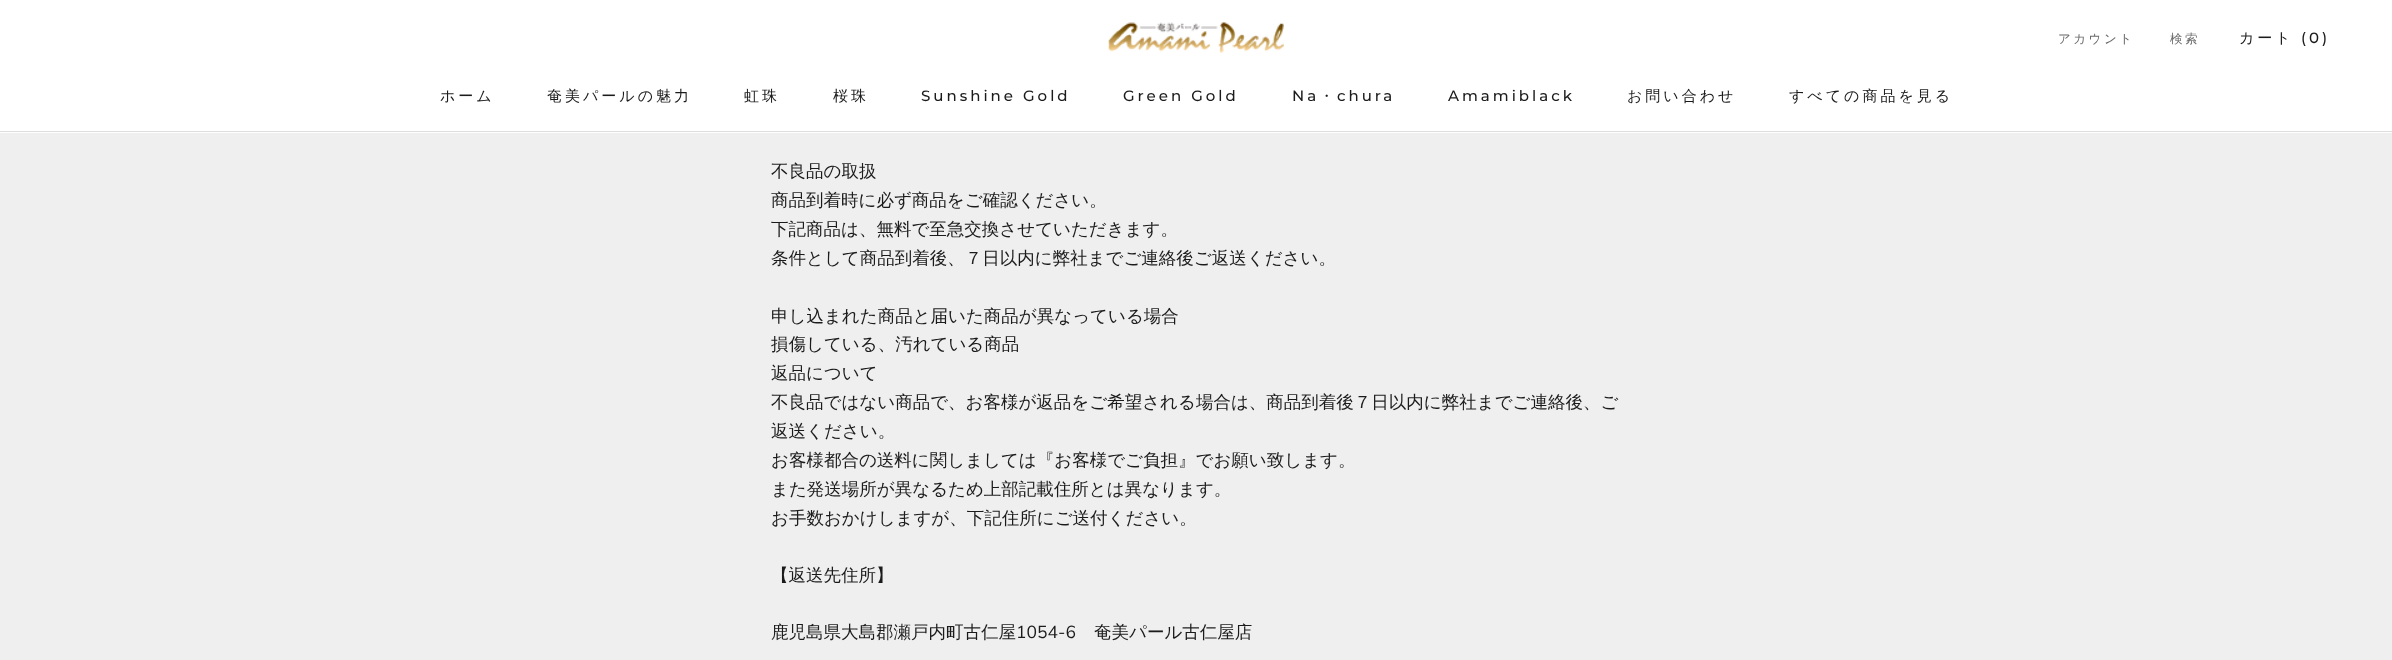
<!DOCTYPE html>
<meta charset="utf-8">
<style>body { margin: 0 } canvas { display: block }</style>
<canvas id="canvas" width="2392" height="660"></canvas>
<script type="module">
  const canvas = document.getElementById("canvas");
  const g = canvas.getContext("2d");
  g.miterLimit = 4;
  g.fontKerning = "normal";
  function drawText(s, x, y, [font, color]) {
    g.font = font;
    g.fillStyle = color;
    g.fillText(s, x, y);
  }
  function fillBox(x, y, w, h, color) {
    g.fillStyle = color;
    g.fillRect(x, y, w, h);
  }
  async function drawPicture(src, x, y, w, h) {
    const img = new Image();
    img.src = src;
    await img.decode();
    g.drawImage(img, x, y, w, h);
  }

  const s1 = ["500 12.5px WenQuanYi Zen Hei", "#6A6A6A"];
  const s2 = ["500 15px WenQuanYi Zen Hei", "#1C1B1B"];
  const s3 = ["500 15px Montserrat", "#1C1B1B"];
  const s4 = ["500 17.5px WenQuanYi Zen Hei", "#1C1B1B"];
  const s5 = ["17.5px Nunito Sans", "#1C1B1B"];

  fillBox(0, 0, 2392, 660, "#EFEFEF");
  fillBox(0, 0, 2392, 133, "#FFFFFF");
  fillBox(0, 131, 2392, 1, "#DDDDDD");
  await drawPicture("pic1.png", 1108, 22, 176, 31);
  g.letterSpacing = "2.5px";
  drawText("アカウント", 2058, 43, s1);
  drawText("検索", 2170, 43, s1);
  g.letterSpacing = "3px";
  drawText("カート", 2239, 43, s2);
  drawText("(0)", 2301, 43, s3);
  drawText("ホーム", 440, 101, s2);
  drawText("奄美パールの魅力", 547, 101, s2);
  drawText("虹珠", 744, 101, s2);
  drawText("桜珠", 833, 101, s2);
  drawText("Sunshine Gold", 921, 101, s3);
  drawText("Green Gold", 1123, 101, s3);
  drawText("Na", 1292, 101, s3);
  drawText("・", 1319, 101, s2);
  drawText("chura", 1337, 101, s3);
  drawText("Amamiblack", 1448, 101, s3);
  drawText("お問い合わせ", 1627, 101, s2);
  drawText("すべての商品を見る", 1789, 101, s2);
  g.letterSpacing = "0px";
  drawText("不良品の取扱", 771, 177, s4);
  drawText("商品到着時に必ず商品をご確認ください。", 771, 206, s4);
  drawText("下記商品は、無料で至急交換させていただきます。", 771, 235, s4);
  drawText("条件として商品到着後、７日以内に弊社までご連絡後ご返送ください。", 771, 264, s4);
  drawText("申し込まれた商品と届いた商品が異なっている場合", 771, 322, s4);
  drawText("損傷している、汚れている商品", 771, 350, s4);
  drawText("返品について", 771, 379, s4);
  drawText("不良品ではない商品で、お客様が返品をご希望される場合は、商品到着後７日以内に弊社までご連絡後、ご", 771, 408, s4);
  drawText("返送ください。", 771, 437, s4);
  drawText("お客様都合の送料に関しましては『お客様でご負担』でお願い致します。", 771, 466, s4);
  drawText("また発送場所が異なるため上部記載住所とは異なります。", 771, 495, s4);
  drawText("お手数おかけしますが、下記住所にご送付ください。", 771, 524, s4);
  drawText("【返送先住所】", 771, 581, s4);
  drawText("鹿児島県大島郡瀬戸内町古仁屋", 771, 638, s4);
  drawText("1054-6", 1016, 638, s5);
  drawText("奄美パール古仁屋店", 1094, 638, s4);
</script>
